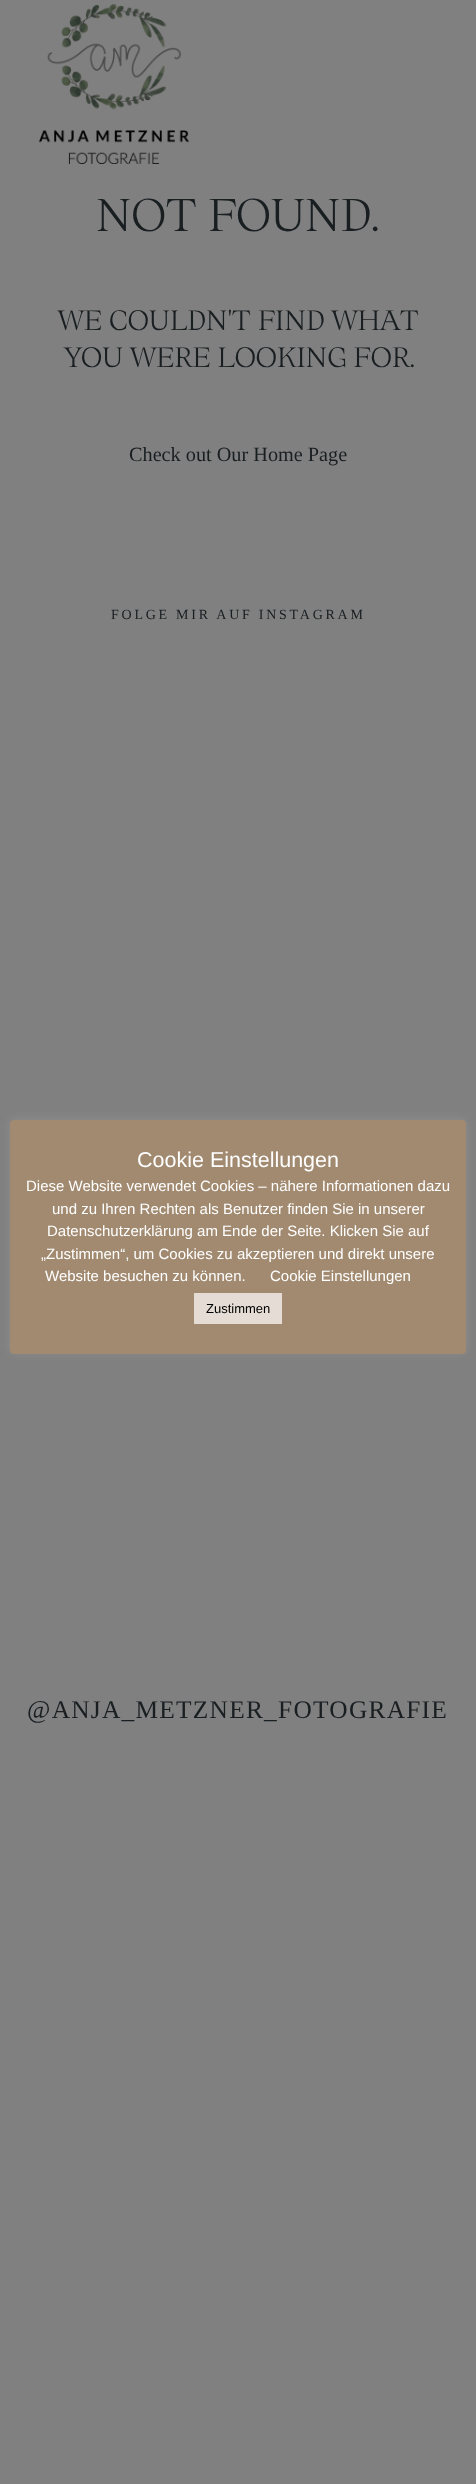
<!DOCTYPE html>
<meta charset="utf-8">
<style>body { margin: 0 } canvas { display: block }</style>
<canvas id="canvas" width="476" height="2484"></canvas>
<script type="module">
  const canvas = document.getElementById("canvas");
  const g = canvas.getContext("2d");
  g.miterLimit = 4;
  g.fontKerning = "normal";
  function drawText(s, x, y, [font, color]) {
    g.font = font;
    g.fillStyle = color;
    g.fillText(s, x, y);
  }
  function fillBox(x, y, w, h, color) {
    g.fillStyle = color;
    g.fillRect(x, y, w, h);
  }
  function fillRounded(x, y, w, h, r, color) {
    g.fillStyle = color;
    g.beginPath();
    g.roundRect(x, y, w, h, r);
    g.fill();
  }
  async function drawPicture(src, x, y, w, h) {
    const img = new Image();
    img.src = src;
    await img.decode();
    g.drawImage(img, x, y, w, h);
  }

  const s1 = ["300 45.75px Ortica", "#191E21"];
  const s2 = ["300 28px Ortica", "#191E21"];
  const s3 = ["20.25px Liberation Serif", "#191E21"];
  const s4 = ["14px Liberation Serif", "#191E21"];
  const s5 = ["25.4px Liberation Serif", "#191E21"];
  const s6 = ["21.5px Liberation Sans", "#FFFFFF"];
  const s7 = ["15px Liberation Sans", "#FFFFFF"];
  const s8 = ["13px Liberation Sans", "#000000"];

  fillBox(0, 0, 476, 2484, "#808080");
  await drawPicture("pic1.png", 39, 4, 150, 160);
  g.letterSpacing = "0.05px";
  drawText("NOT FOUND.", 96, 231, s1);
  drawText("WE COULDN'T FIND WHAT", 58, 330, s2);
  drawText("YOU WERE LOOKING FOR.", 63, 367, s2);
  g.letterSpacing = "0px";
  drawText("Check out Our Home Page", 129, 461, s3);
  g.letterSpacing = "2.75px";
  drawText("FOLGE MIR AUF INSTAGRAM", 111, 619, s4);
  g.letterSpacing = "1.25px";
  drawText("@ANJA_METZNER_FOTOGRAFIE", 27, 1718, s5);
  g.fillStyle = "rgba(172, 171, 171, 0.3)";
  g.filter = "blur(5px)";
  g.beginPath();
  g.roundRect(10, 1119, 456, 234, 4);
  g.fill();
  g.filter = "none";
  fillRounded(10, 1120, 456, 234, 4, "#A18A70");
  g.letterSpacing = "0px";
  drawText("Cookie Einstellungen", 137, 1167, s6);
  drawText("Diese Website verwendet Cookies – nähere Informationen dazu", 26, 1191, s7);
  drawText("und zu Ihren Rechten als Benutzer finden Sie in unserer", 52, 1214, s7);
  drawText("Datenschutzerklärung am Ende der Seite. Klicken Sie auf", 47, 1236, s7);
  drawText("„Zustimmen“, um Cookies zu akzeptieren und direkt unsere", 41, 1259, s7);
  drawText("Website besuchen zu können.", 45, 1281, s7);
  drawText("Cookie Einstellungen", 270, 1281, s7);
  fillBox(194, 1293, 88, 31, "#E5DDD5");
  drawText("Zustimmen", 206, 1313, s8);
</script>
